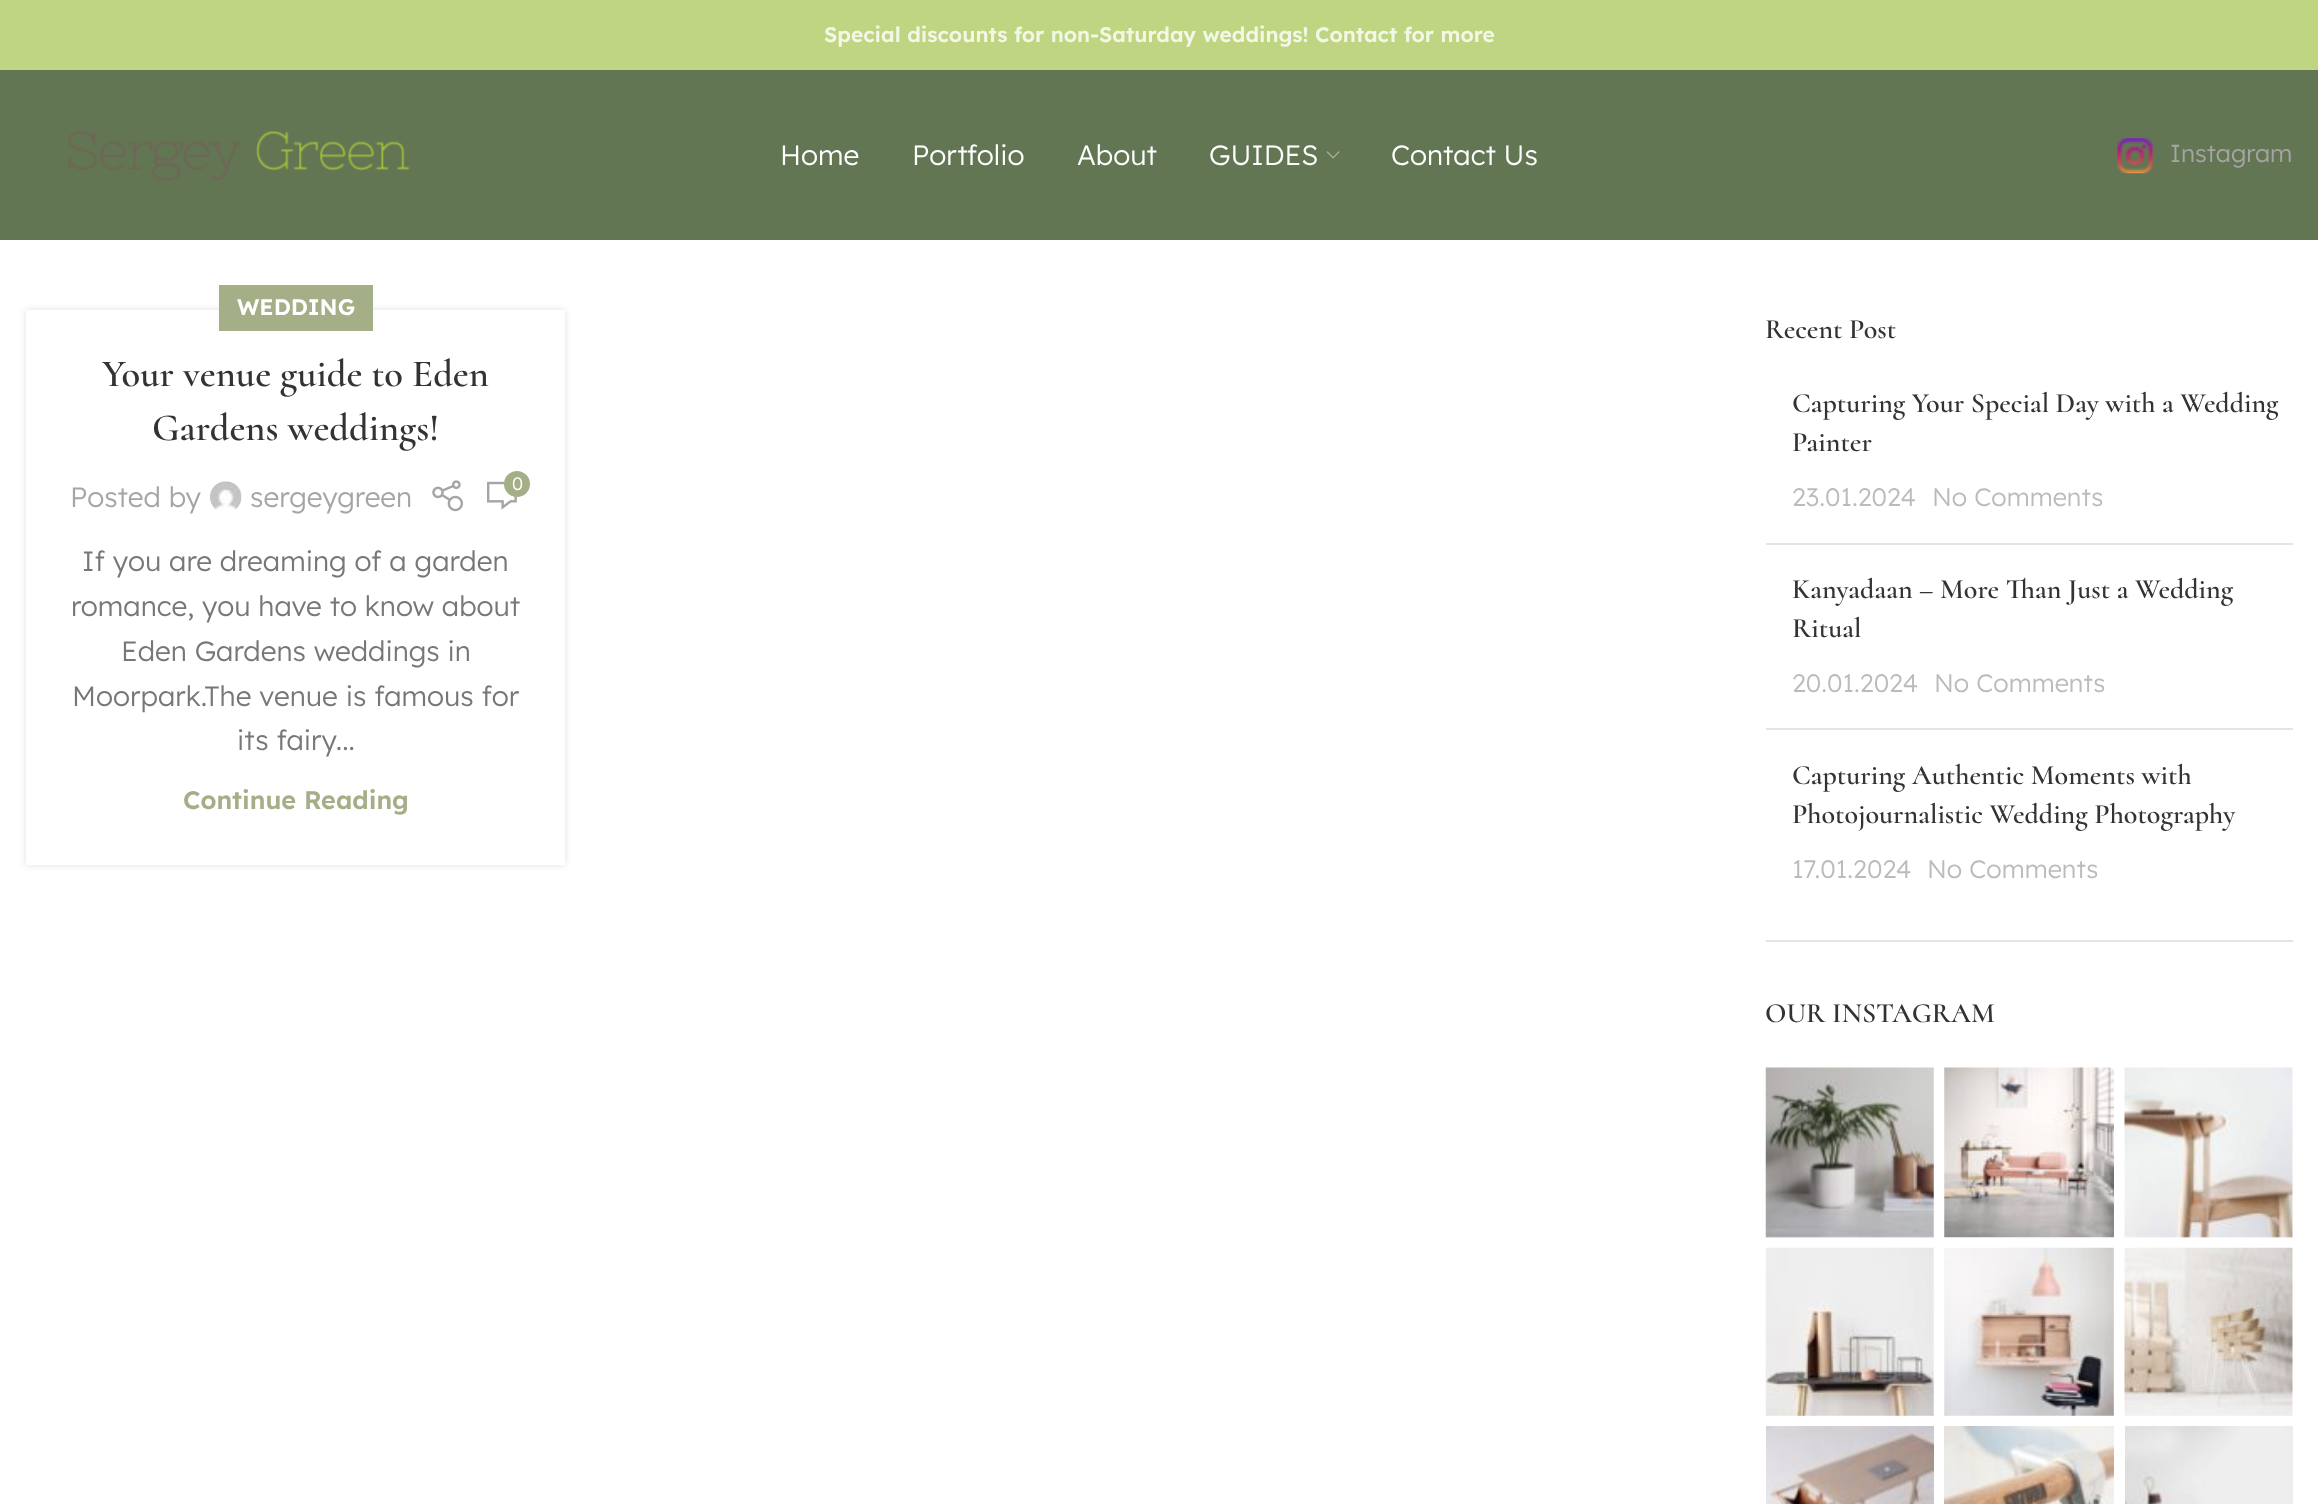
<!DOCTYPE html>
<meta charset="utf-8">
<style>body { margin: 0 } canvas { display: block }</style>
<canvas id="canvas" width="2318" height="1504"></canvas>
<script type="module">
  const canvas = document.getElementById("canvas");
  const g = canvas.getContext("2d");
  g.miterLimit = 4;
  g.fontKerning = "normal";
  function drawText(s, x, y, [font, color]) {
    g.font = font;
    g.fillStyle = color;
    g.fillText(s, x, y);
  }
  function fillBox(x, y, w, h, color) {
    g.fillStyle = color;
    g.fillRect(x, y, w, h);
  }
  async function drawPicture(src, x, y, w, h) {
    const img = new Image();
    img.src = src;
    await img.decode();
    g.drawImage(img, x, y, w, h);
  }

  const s1 = ["600 21px Lexend", "#F2F7E6"];
  const s2 = ["300 28px Lexend", "#FFFFFF"];
  const s3 = ["300 24.5px Lexend", "#A5A5A5"];
  const s4 = ["600 22.5px Lexend", "#FFFFFF"];
  const s5 = ["600 38.5px Cormorant", "#333333"];
  const s6 = ["300 28px Lexend", "#A5A5A5"];
  const s7 = ["300 18px Lexend", "#FFFFFF"];
  const s8 = ["300 28px Lexend", "#777777"];
  const s9 = ["600 25.25px Lexend", "#A5AF87"];
  const s10 = ["600 28px Cormorant", "#333333"];
  const s11 = ["300 25.25px Lexend", "#BBBBBB"];

  fillBox(0, 0, 2318, 1504, "#FFFFFF");
  fillBox(0, 0, 2318, 70, "#C0D581");
  drawText("Special discounts for non-Saturday weddings! Contact for more", 824, 42, s1);
  fillBox(0, 70, 2318, 170, "#637654");
  await drawPicture("pic1.png", 68, 131, 342, 50);
  drawText("Home", 780, 165, s2);
  drawText("Portfolio", 912, 165, s2);
  drawText("About", 1077, 165, s2);
  drawText("GUIDES", 1209, 165, s2);
  await drawPicture("pic2.png", 1326, 151, 14, 8);
  drawText("Contact Us", 1391, 165, s2);
  await drawPicture("pic3.png", 2117, 138, 36, 36);
  drawText("Instagram", 2170, 162, s3);
  g.fillStyle = "rgba(0, 0, 0, 0.12)";
  g.filter = "blur(3.5px)";
  g.beginPath();
  g.rect(26, 310, 539, 555);
  g.fill();
  g.filter = "none";
  fillBox(26, 310, 539, 555, "#FFFFFF");
  fillBox(219, 285, 154, 46, "#A5AF87");
  drawText("WEDDING", 237, 315, s4);
  drawText("Your venue guide to Eden", 102, 386, s5);
  drawText("Gardens weddings!", 152, 440, s5);
  drawText("Posted by", 70, 507, s6);
  await drawPicture("pic4.png", 210, 481, 32, 29);
  drawText("sergeygreen", 250, 507, s6);
  await drawPicture("pic5.png", 432, 480, 31, 32);
  await drawPicture("pic6.png", 487, 481, 30, 29);
  g.fillStyle = "#A5AF87";
  g.beginPath();
  g.arc(517, 484, 13, 0, Math.PI * 2);
  g.fill();
  drawText("0", 512, 490, s7);
  drawText("If you are dreaming of a garden", 82, 571, s8);
  drawText("romance, you have to know about", 71, 616, s8);
  drawText("Eden Gardens weddings in", 121, 661, s8);
  drawText("Moorpark.The venue is famous for", 72, 706, s8);
  drawText("its fairy...", 237, 750, s8);
  drawText("Continue Reading", 183, 809, s9);
  fillBox(1766, 940, 527, 2, "#E4E4E4");
  drawText("Recent Post", 1765, 338, s10);
  fillBox(1766, 543, 527, 2, "#E4E4E4");
  drawText("Capturing Your Special Day with a Wedding", 1792, 412, s10);
  drawText("Painter", 1792, 451, s10);
  drawText("23.01.2024", 1792, 506, s11);
  drawText("No Comments", 1932, 506, s11);
  fillBox(1766, 728, 527, 2, "#E4E4E4");
  drawText("Kanyadaan – More Than Just a Wedding", 1792, 598, s10);
  drawText("Ritual", 1792, 637, s10);
  drawText("20.01.2024", 1792, 692, s11);
  drawText("No Comments", 1934, 692, s11);
  drawText("Capturing Authentic Moments with", 1792, 784, s10);
  drawText("Photojournalistic Wedding Photography", 1792, 823, s10);
  drawText("17.01.2024", 1792, 878, s11);
  drawText("No Comments", 1927, 878, s11);
  drawText("OUR INSTAGRAM", 1765, 1022, s10);
  await drawPicture("pic7.png", 1765, 1067, 169, 171);
  await drawPicture("pic8.png", 1944, 1067, 170, 171);
  await drawPicture("pic9.png", 2124, 1067, 169, 171);
  await drawPicture("pic10.png", 1765, 1247, 169, 169);
  await drawPicture("pic11.png", 1944, 1247, 170, 169);
  await drawPicture("pic12.png", 2124, 1247, 169, 169);
  await drawPicture("pic13.png", 1766, 1426, 168, 78);
  await drawPicture("pic14.png", 1944, 1426, 170, 78);
  await drawPicture("pic15.png", 2125, 1426, 168, 78);
</script>
